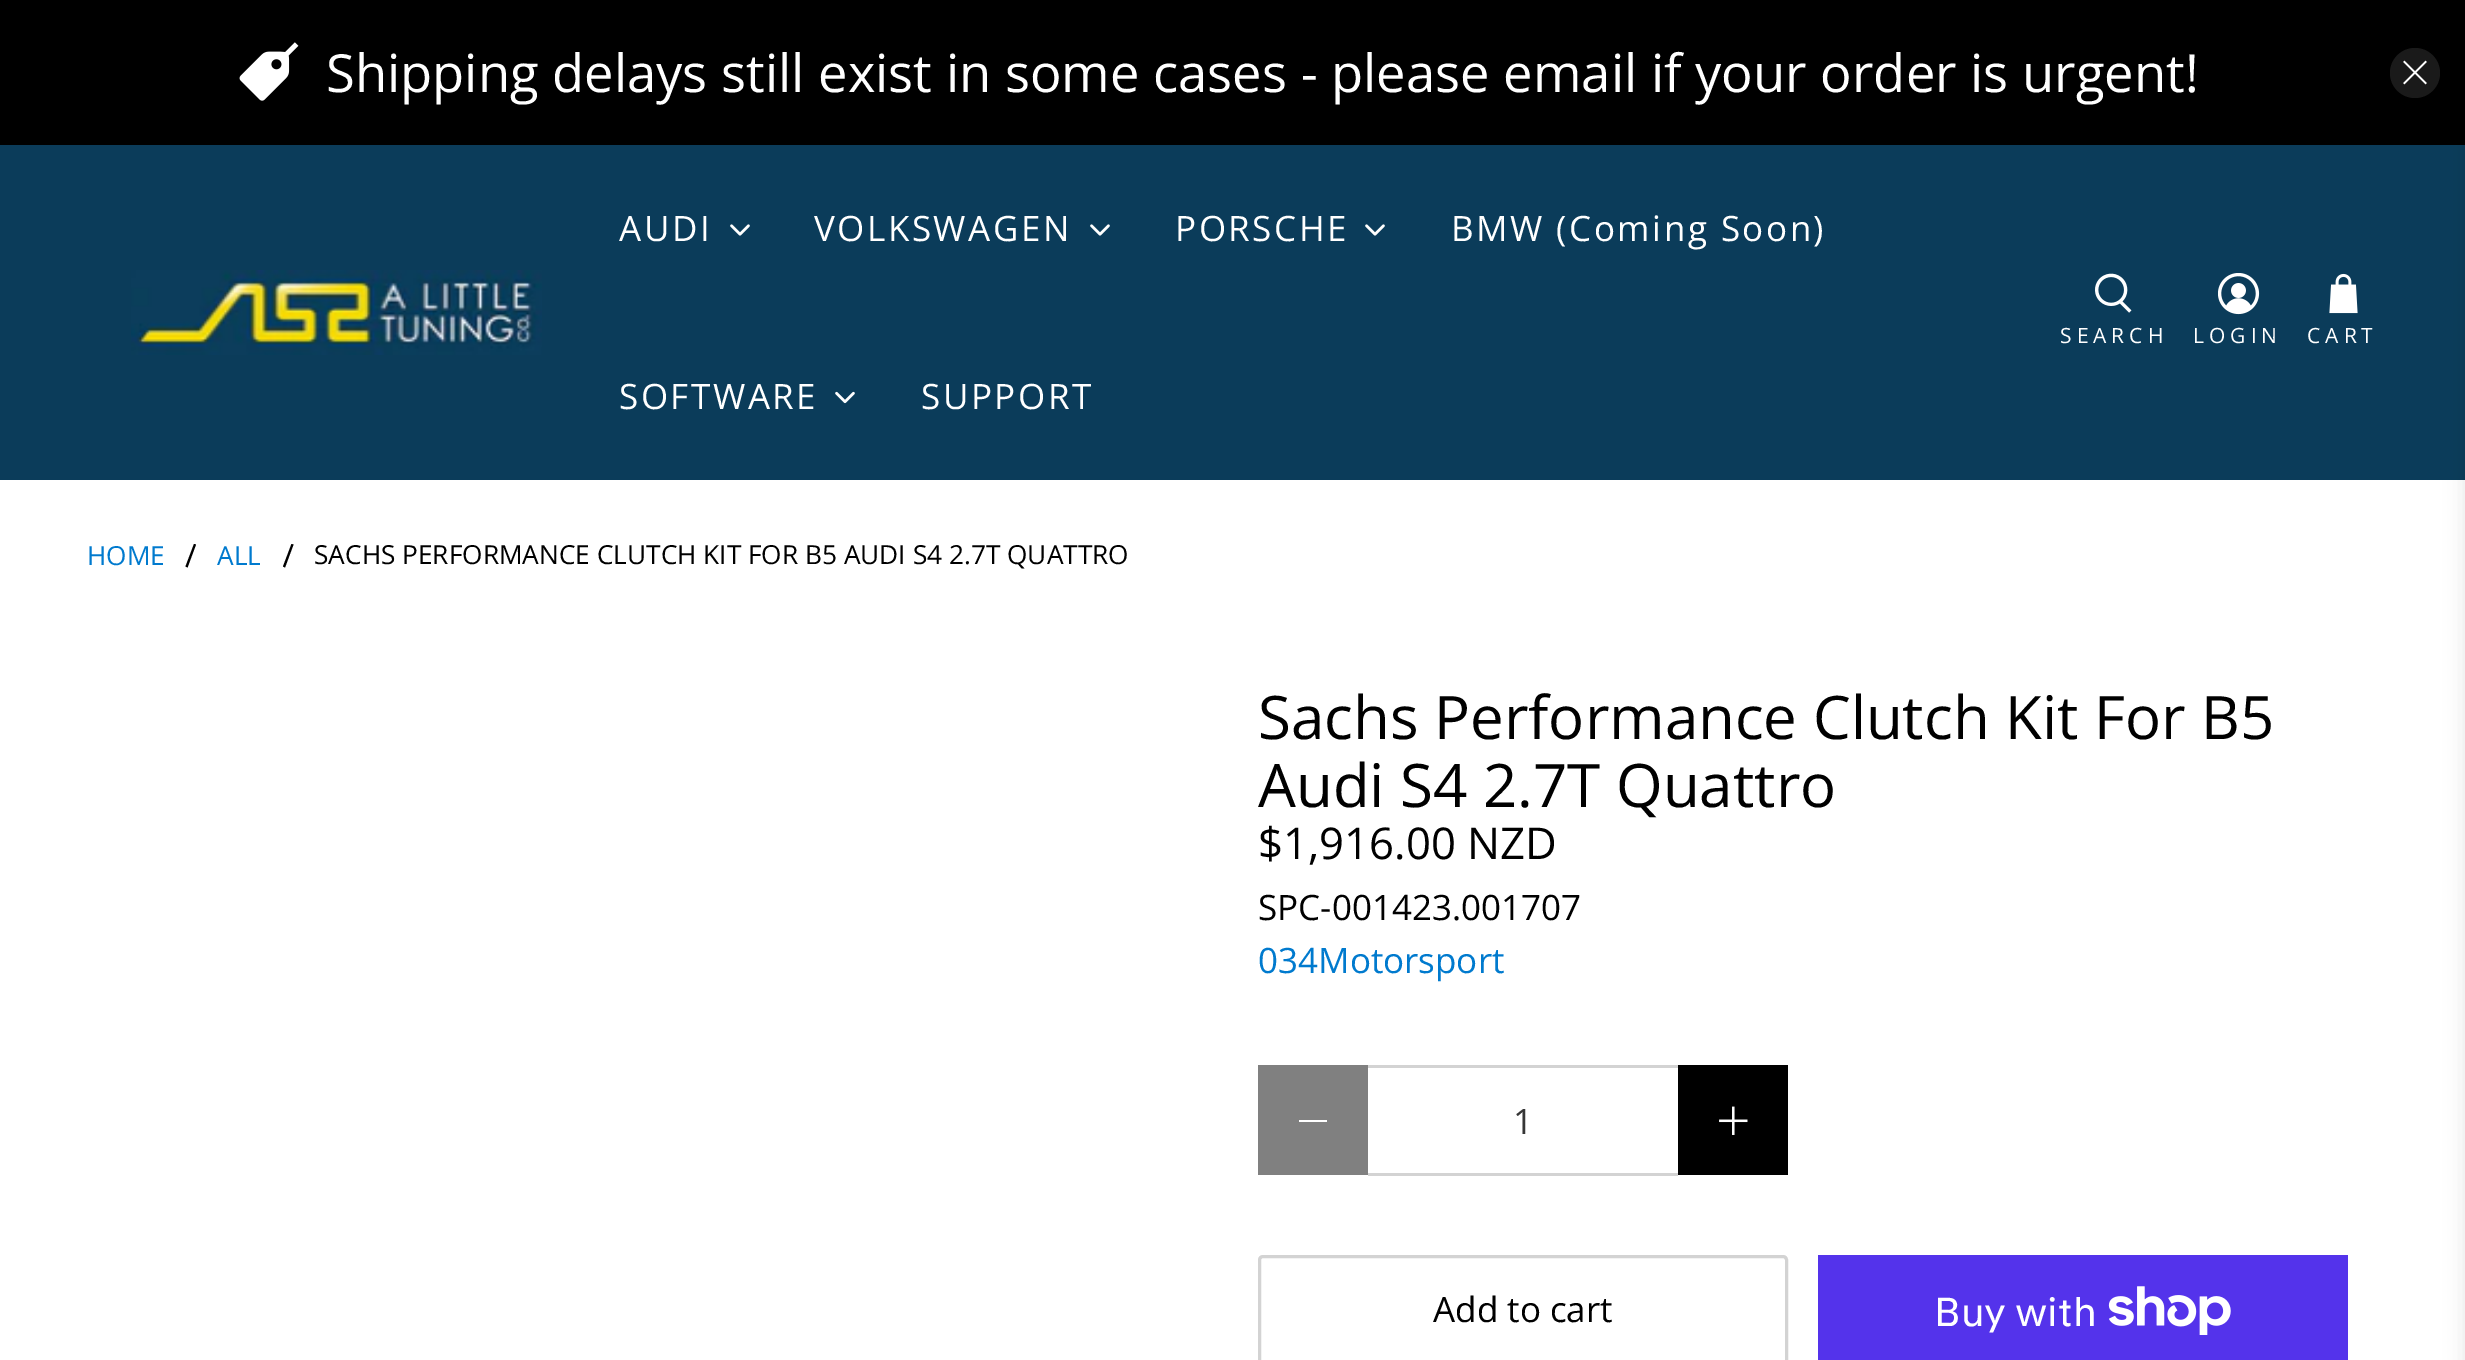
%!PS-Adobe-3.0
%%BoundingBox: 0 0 2465 1360
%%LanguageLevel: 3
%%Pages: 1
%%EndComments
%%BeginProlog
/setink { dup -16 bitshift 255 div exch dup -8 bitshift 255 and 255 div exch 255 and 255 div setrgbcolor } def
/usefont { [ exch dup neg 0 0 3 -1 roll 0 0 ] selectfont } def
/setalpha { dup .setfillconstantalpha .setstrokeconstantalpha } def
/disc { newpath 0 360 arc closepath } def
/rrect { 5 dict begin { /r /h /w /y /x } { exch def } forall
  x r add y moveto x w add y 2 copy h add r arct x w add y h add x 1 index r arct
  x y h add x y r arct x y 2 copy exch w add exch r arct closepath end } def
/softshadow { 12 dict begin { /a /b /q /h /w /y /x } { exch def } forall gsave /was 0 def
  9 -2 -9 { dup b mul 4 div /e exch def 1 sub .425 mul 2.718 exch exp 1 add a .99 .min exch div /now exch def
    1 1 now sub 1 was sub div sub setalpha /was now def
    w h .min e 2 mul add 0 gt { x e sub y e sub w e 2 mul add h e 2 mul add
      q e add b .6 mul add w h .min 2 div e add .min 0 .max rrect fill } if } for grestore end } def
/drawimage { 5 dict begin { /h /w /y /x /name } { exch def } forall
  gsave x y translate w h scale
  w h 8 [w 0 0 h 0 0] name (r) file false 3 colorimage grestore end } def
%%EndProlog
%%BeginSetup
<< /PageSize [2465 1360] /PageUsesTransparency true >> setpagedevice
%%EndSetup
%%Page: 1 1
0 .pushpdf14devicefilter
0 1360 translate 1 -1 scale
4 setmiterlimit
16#FFFFFF setink
0 0 2465 1360 rectfill
16#000000 setink
0 0 2465 145 rectfill
(img1.raw) 239 42 60 59 drawimage
/OpenSans-Regular 52.5 usefont
16#FFFFFF setink
326 92 moveto (Shipping delays still exist in some cases - please email if your order is urgent!) show
16#1A1A1A setink
2415 73 25 disc fill
(img2.raw) 2403 60 24 25 drawimage
16#0B3C5A setink
0 145 2465 335 rectfill
16#0A0A0A setink
2465 20 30 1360 0 10 0.1 softshadow
(img3.raw) 131 270 411 85 drawimage
/OpenSans-Regular 35 usefont
16#FFFFFF setink
619 241 moveto 2.5 0 (AUDI) ashow
(img4.raw) 730 224 20 12 drawimage
814 241 moveto 2.5 0 (VOLKSWAGEN) ashow
(img4.raw) 1090 224 20 12 drawimage
1175 241 moveto 2.5 0 (PORSCHE) ashow
(img4.raw) 1365 224 20 12 drawimage
1451 241 moveto 2.5 0 (BMW \(Coming Soon\)) ashow
619 409 moveto 2.5 0 (SOFTWARE) ashow
(img5.raw) 835 391 20 13 drawimage
921 409 moveto 2.5 0 (SUPPORT) ashow
(img6.raw) 2095 273 37 40 drawimage
/OpenSans-Regular 21 usefont
2060 343 moveto 5 0 (SEARCH) ashow
(img7.raw) 2218 273 42 42 drawimage
2193 343 moveto 5 0 (LOGIN) ashow
(img8.raw) 2329 273 29 41 drawimage
2307 343 moveto 5 0 (CART) ashow
/OpenSans-Regular 26.25 usefont
16#007ACE setink
87 565 moveto (HOME) show
16#000000 setink
185.5 566.5 moveto 194 544 lineto 196 544.5 lineto 187.5 567.5 lineto closepath fill
16#007ACE setink
217 565 moveto (ALL) show
16#000000 setink
283 566.5 moveto 291.5 544 lineto 293.5 544.5 lineto 285 567.5 lineto closepath fill
314 564 moveto (SACHS PERFORMANCE CLUTCH KIT FOR B5 AUDI S4 2.7T QUATTRO) show
/OpenSans-Regular 60 usefont
1258 739 moveto (Sachs Performance Clutch Kit For B5) show
1258 807 moveto (Audi S4 2.7T Quattro) show
/OpenSans-Regular 43.75 usefont
1258 859 moveto ($1,916.00 NZD) show
/OpenSans-Regular 35 usefont
1258 920 moveto (SPC-001423.001707) show
16#007ACE setink
1258 973 moveto (034Motorsport) show
[
    [1258 1065 110 110 16#808080]
    [1299 1120 28 2 16#FFFFFF]
    [1368 1065 310 3 16#D3D3D3]
    [1368 1173 310 3 16#D3D3D3]
] { aload pop setink rectfill } forall
16#363636 setink
1513 1134 moveto (1) show
16#000000 setink
1678 1065 110 110 rectfill
(img9.raw) 1719 1106 29 29 drawimage
16#D3D3D3 setink
3 setlinewidth
1259.5 1256.5 527 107 3.5 rrect stroke
16#000000 setink
1433 1322 moveto (Add to cart) show
16#5433EB setink
1818 1255 530 105 rectfill
/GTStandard-Regular 40 usefont
16#FFFFFF setink
1934 1326 moveto (Buy with) show
(img10.raw) 2108 1286 123 49 drawimage
.poppdf14devicefilter showpage
%%EOF
